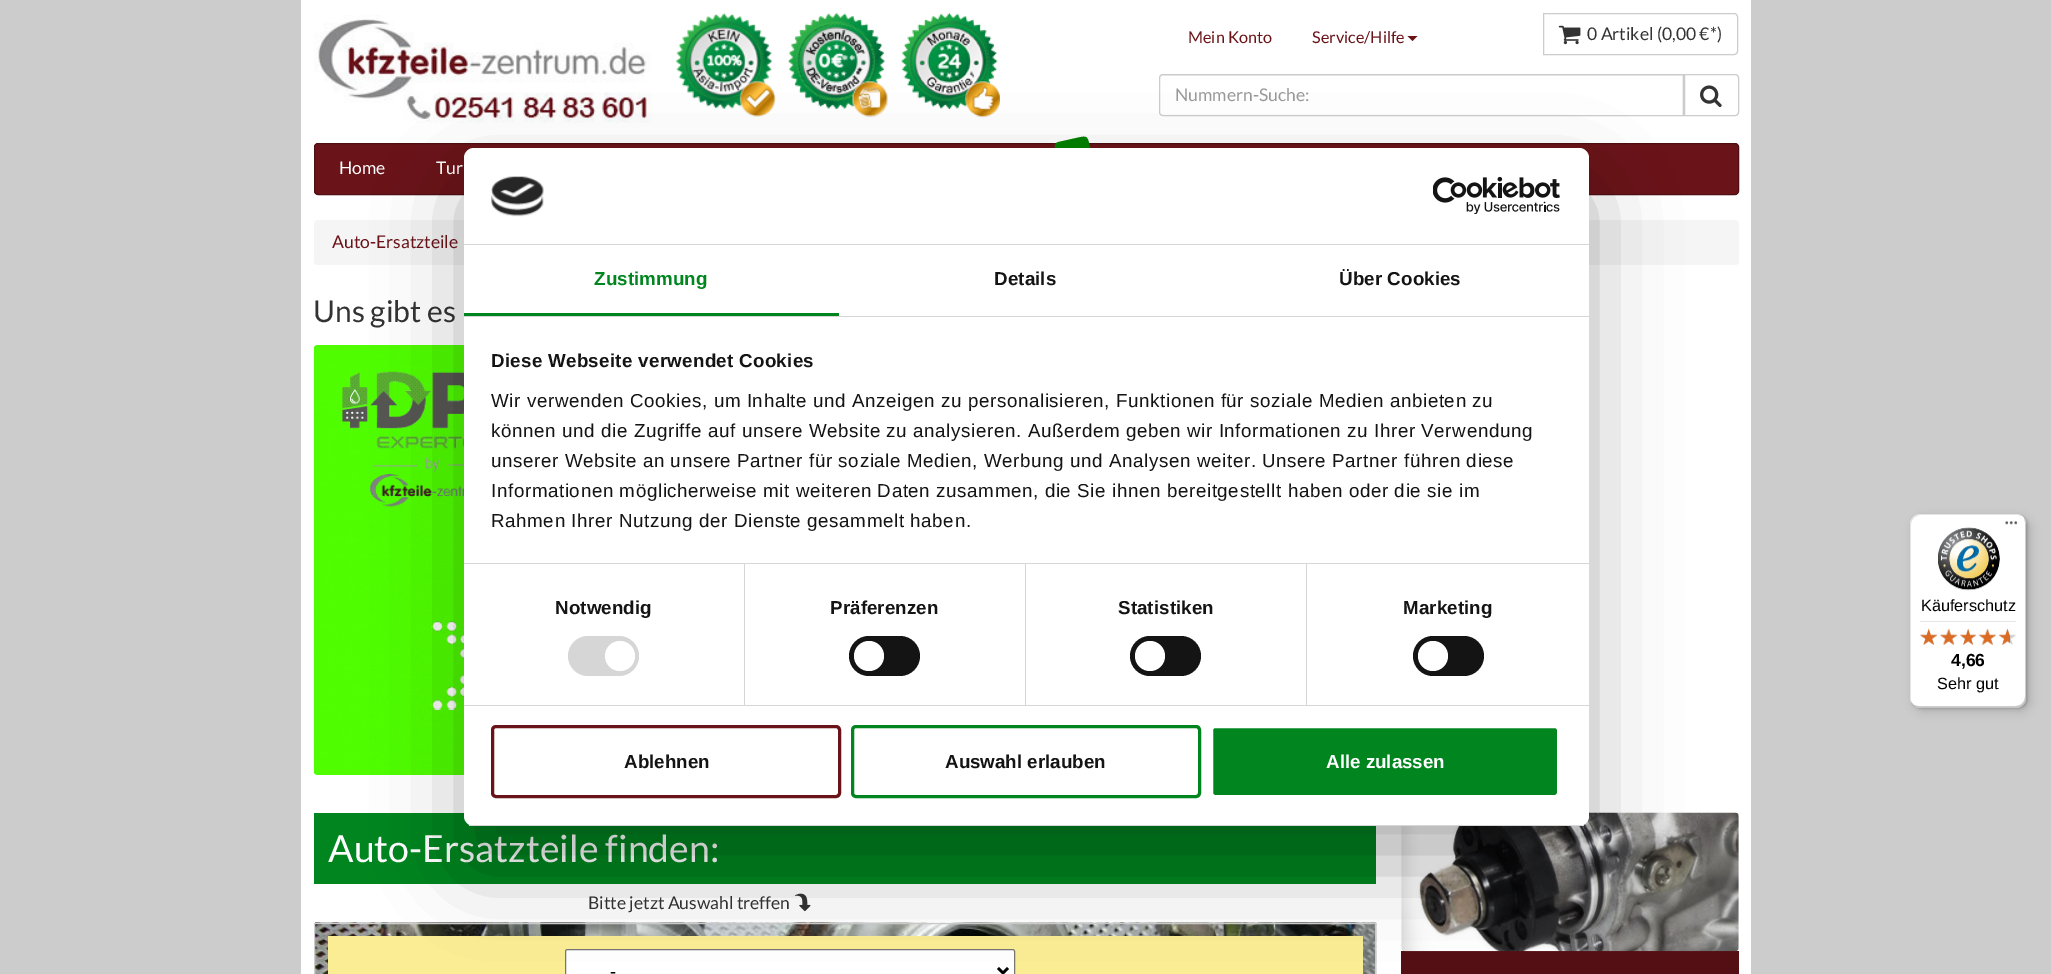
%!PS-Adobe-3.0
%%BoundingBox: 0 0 2051 974
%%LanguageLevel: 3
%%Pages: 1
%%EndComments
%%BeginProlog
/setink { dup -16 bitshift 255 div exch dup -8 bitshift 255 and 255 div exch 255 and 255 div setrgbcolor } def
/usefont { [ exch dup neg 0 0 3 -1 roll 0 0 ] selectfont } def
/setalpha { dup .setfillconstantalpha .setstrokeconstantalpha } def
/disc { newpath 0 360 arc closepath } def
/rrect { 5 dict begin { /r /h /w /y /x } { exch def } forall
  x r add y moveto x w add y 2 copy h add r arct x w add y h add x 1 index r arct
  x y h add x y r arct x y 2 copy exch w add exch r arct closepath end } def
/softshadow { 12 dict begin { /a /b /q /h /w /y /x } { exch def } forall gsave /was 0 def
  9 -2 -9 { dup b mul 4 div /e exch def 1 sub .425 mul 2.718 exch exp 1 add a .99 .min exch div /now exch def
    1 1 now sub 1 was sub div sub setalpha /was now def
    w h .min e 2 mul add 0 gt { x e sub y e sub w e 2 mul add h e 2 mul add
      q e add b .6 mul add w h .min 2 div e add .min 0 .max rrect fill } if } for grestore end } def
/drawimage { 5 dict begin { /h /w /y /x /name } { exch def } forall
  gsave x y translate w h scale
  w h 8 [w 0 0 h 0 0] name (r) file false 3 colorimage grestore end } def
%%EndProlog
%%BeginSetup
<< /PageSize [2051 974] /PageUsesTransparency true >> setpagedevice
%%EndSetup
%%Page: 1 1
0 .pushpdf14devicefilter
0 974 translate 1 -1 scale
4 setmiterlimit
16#CCCCCC setink
0 0 2051 974 rectfill
16#FFFFFF setink
301 0 1450 974 rectfill
(img1.raw) 314 15 337 108 drawimage
(img2.raw) 676 12 324 106 drawimage
/Lato-Regular 16.25 usefont
16#6A1319 setink
1188 43 moveto (Mein Konto) show
1312 43 moveto (Service/Hilfe) show
1407.5 36 moveto 1417.5 36 lineto 1412.5 41 lineto closepath fill
16#CCCCCC setink
1543.5 13.5 moveto 1734 13.5 lineto 1736 13.5 1737.5 15 1737.5 17 curveto 1737.5 51 lineto 1737.5 53 1736 54.5 1734 54.5 curveto 1543.5 54.5 lineto closepath stroke
(img3.raw) 1558 25 23 20 drawimage
/Lato-Regular 17.5 usefont
16#333333 setink
1587 40 moveto (0 Artikel \(0,00 €*\)) show
16#ECECEC setink
1162 76 moveto 1682 76 lineto 1682 115 lineto 1683 115 lineto 1683 75 lineto 1162 75 lineto 1160 75 1160 77 1160 79 curveto 1160 77 1161 76 1162 76 curveto closepath fill
16#CCCCCC setink
1163 74.5 moveto 1683.5 74.5 lineto 1683.5 115.5 lineto 1163 115.5 lineto 1161 115.5 1159.5 114 1159.5 112 curveto 1159.5 78 lineto 1159.5 76 1161 74.5 1163 74.5 curveto closepath stroke
16#999999 setink
1175 101 moveto (Nummern-Suche:) show
16#CCCCCC setink
1684.5 74.5 moveto 1735 74.5 lineto 1737 74.5 1738.5 76 1738.5 78 curveto 1738.5 112 lineto 1738.5 114 1737 115.5 1735 115.5 curveto 1684.5 115.5 lineto closepath stroke
(img4.raw) 1700 85 22 22 drawimage
16#6A1319 setink
314.5 143.5 1424 51 3.5 rrect gsave fill grestore
16#4E0E12 setink
stroke
16#008000 setink
1058.5 142 moveto 1078.5 137.5 lineto 1087.5 135.5 1087.5 137 1089.5 145 curveto 1090.5 149 1092 154.5 1086.5 156 curveto 1061.5 161 lineto 1056 161 1056 153 1055 149.5 curveto 1054.5 146 1055 142.5 1058.5 142 curveto closepath fill
16#FFFFFF setink
339 174 moveto (Home) show
436 174 moveto (Tur) show
16#F5F5F5 setink
314 220 1425 45 4 rrect fill
16#6A1319 setink
332 248 moveto (Auto-Ersatzteile) show
/Lato-Regular 30 usefont
16#333333 setink
313 322 moveto (Uns gibt es) show
(img5.raw) 313 345 151 430 drawimage
16#00851F setink
314 813 1062 71 rectfill
/Lato-Regular 37.5 usefont
16#FFFFFF setink
328 862 moveto (Auto-Ersatzteile finden:) show
/Lato-Regular 17.5 usefont
16#333333 setink
588 909 moveto (Bitte jetzt Auswahl treffen) show
(img6.raw) 794 893 17 19 drawimage
(img7.raw) 315 922 1062 52 drawimage
16#CCCCCC setink
314.5 923.5 1061 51 rectstroke
16#FAED94 setink
328 936 1035 38 rectfill
16#FFFFFF setink
565.5 949.5 449 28 2 rrect gsave fill grestore
16#767676 setink
stroke
16#000000 setink
2.5 setlinewidth
998 968 moveto 1003 973 lineto 1008 968 lineto stroke
610 978 moveto (-) show
16#540F14 setink
1401 951 338 23 rectfill
(img8.raw) 1401 812 338 140 drawimage
16#000000 setink
464 188 1125 678 10 42.5 0.3 softshadow
16#FFFFFF setink
464 148 1125 678 10 rrect fill
16#D6D6D6 setink
464 244 1125 1 rectfill
(img9.raw) 491 176 53 41 drawimage
(img10.raw) 1433 176 127 38 drawimage
464 316 1125 1 rectfill
16#00851F setink
464 313 375 3 rectfill
/LiberationSans-Bold 18.75 usefont
594 285 moveto 0.1 0 (Zustimmung) ashow
16#141414 setink
994 285 moveto 0.1 0 (Details) ashow
1339 285 moveto 0.1 0 (Über Cookies) ashow
16#D6D6D6 setink
464 563 1125 1 rectfill
16#141414 setink
491 367 moveto 0.3 0 (Diese Webseite verwendet Cookies) ashow
/LiberationSans-Regular 18.75 usefont
491 407 moveto 0.62 0 (Wir verwenden Cookies, um Inhalte und Anzeigen zu personalisieren, Funktionen für soziale Medien anbieten zu) ashow
491 437 moveto 0.62 0 (können und die Zugriffe auf unsere Website zu analysieren. Außerdem geben wir Informationen zu Ihrer Verwendung) ashow
491 467 moveto 0.62 0 (unserer Website an unsere Partner für soziale Medien, Werbung und Analysen weiter. Unsere Partner führen diese) ashow
491 497 moveto 0.62 0 (Informationen möglicherweise mit weiteren Daten zusammen, die Sie ihnen bereitgestellt haben oder die sie im) ashow
491 527 moveto 0.62 0 (Rahmen Ihrer Nutzung der Dienste gesammelt haben.) ashow
16#D6D6D6 setink
464 705 1125 1 rectfill
744 564 1 141 rectfill
/LiberationSans-Bold 18.75 usefont
16#141414 setink
555 614 moveto 0.1 0 (Notwendig) ashow
16#D6D6D6 setink
568 636 71 40 20 rrect fill
16#FFFFFF setink
620 656 15 disc fill
16#D6D6D6 setink
1025 564 1 141 rectfill
16#141414 setink
830 614 moveto 0.1 0 (Präferenzen) ashow
849 636 71 40 20 rrect fill
16#FFFFFF setink
869 656 15 disc fill
16#D6D6D6 setink
1306 564 1 141 rectfill
16#141414 setink
1118 614 moveto 0.1 0 (Statistiken) ashow
1130 636 71 40 20 rrect fill
16#FFFFFF setink
1150 656 15 disc fill
16#141414 setink
1403 614 moveto 0.1 0 (Marketing) ashow
1413 636 71 40 20 rrect fill
16#FFFFFF setink
1433 656 15 disc fill
gsave
464 148 1125 678 10 rrect clip newpath
16#D6D6D6 setink
464 825 1125 1 rectfill
grestore
16#6A1319 setink
3 setlinewidth
492.5 726.5 347 70 3.5 rrect stroke
16#141414 setink
624 768 moveto (Ablehnen) show
16#00851F setink
852.5 726.5 347 70 3.5 rrect stroke
16#141414 setink
945 768 moveto (Auswahl erlauben) show
16#00851F setink
1211.5 726.5 347 70 3.5 rrect gsave fill grestore
16#FFFFFF setink
stroke
1326 768 moveto (Alle zulassen) show
16#000000 setink
1914 518 116 193 10 5 0.15 softshadow
1911 515 117 194 10 1 0.15 softshadow
16#FFFFFF setink
1910 514 116 194 10 rrect fill
0.1 setalpha
16#000000 setink
1921 515 moveto 2018 515 lineto 2022 516 lineto 2020 515 2018 514 2016 514 curveto 1920 514 lineto 1914 514 1910 518 1910 524 curveto 1910 698 lineto 1910 702 1912 705 1915 707 curveto 1913 705 1911 702 1911 699 curveto 1911 525 lineto 1911 519 1916 515 1921 515 curveto closepath fill
0.2 setalpha
1911 702 moveto 1913 706 1916 708 1920 708 curveto 2016 708 lineto 2022 708 2026 704 2026 698 curveto 2026 524 lineto 2026 522 2025 520 2024 518 curveto 2025 522 lineto 2025 696 lineto 2025 702 2021 706 2015 706 curveto 1919 706 lineto 1916 706 1913 705 1911 702 curveto closepath fill
1 setalpha
(img11.raw) 2005 521 13 4 drawimage
0.2 setalpha
16#323232 setink
1911 703 moveto 1913 706 1916 708 1920 708 curveto 2016 708 lineto 2022 708 2026 704 2026 698 curveto 2026 697 lineto 2026 702 2021 707 2016 707 curveto 1919 707 lineto 1916 707 1913 705 1911 703 curveto closepath fill
0.3 setalpha
16#FFFFFF setink
1911 703 moveto 1913 706 1916 708 1920 708 curveto 2016 708 lineto 2022 708 2026 704 2026 698 curveto 2026 697 lineto 2026 702 2021 707 2016 707 curveto 1919 707 lineto 1916 707 1913 705 1911 703 curveto closepath fill
1 setalpha
(img12.raw) 1938 527 62 64 drawimage
/LiberationSans-Regular 16.25 usefont
16#000000 setink
1921 611 moveto (Käuferschutz) show
16#E5E5E5 setink
1920 621 96 1 rectfill
(img18.raw) 1920 629 17 16 drawimage
(img13.raw) 1920 628 17 17 drawimage
(img19.raw) 1940 629 17 16 drawimage
(img14.raw) 1940 628 18 17 drawimage
(img20.raw) 1960 629 16 16 drawimage
(img15.raw) 1960 628 16 17 drawimage
(img21.raw) 1978 629 18 16 drawimage
(img16.raw) 1978 628 18 17 drawimage
(img22.raw) 1999 629 17 16 drawimage
(img17.raw) 1999 628 11 17 drawimage
/LiberationSans-Bold 17.5 usefont
16#000000 setink
1951 666 moveto (4,66) show
/LiberationSans-Regular 16.25 usefont
1937 689 moveto (Sehr gut) show
.poppdf14devicefilter showpage
%%EOF
